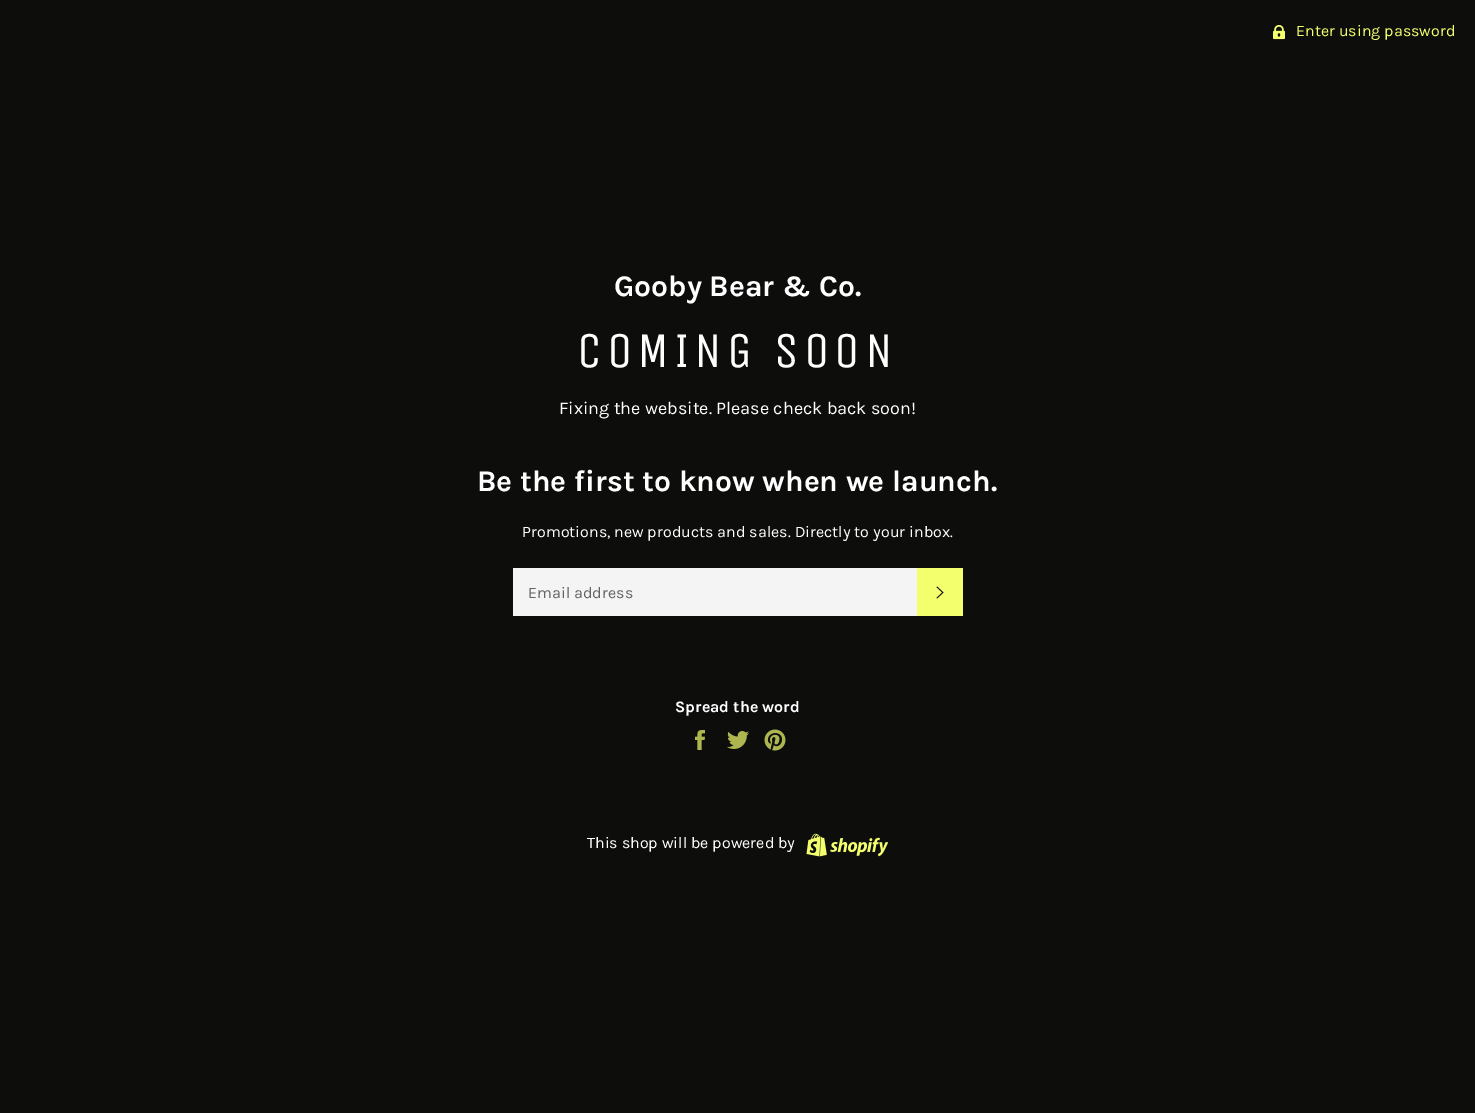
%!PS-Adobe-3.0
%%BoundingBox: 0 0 1475 1113
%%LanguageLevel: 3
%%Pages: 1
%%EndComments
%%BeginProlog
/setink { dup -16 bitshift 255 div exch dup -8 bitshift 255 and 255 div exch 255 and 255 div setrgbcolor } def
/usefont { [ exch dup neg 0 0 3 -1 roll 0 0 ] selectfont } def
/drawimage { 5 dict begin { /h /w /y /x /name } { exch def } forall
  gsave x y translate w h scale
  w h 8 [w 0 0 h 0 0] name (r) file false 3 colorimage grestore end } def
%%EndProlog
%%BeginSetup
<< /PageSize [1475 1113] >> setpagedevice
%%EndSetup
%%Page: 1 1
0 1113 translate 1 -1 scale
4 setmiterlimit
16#0D0D0C setink
0 0 1475 1113 rectfill
(img1.raw) 1273 25 12 15 drawimage
/Karla-Regular 16 usefont
16#F4FF6E setink
1296 36 moveto (Enter using password) show
/Karla-Bold 30 usefont
16#FFFFFF setink
614 296 moveto (Gooby Bear & Co.) show
/UnicaOne-Regular 50 usefont
577 367 moveto 5 0 (COMING SOON) ashow
/Karla-Regular 18 usefont
559 414 moveto (Fixing the website. Please check back soon!) show
/Karla-Bold 30 usefont
477 491 moveto (Be the first to know when we launch.) show
/Karla-Regular 16 usefont
522 537 moveto (Promotions, new products and sales. Directly to your inbox.) show
16#F4F4F4 setink
513 568 404 48 rectfill
16#636363 setink
528 598 moveto (Email address) show
16#F4FF6E setink
917 568 46 48 rectfill
(img2.raw) 936 586 8 13 drawimage
/Karla-Bold 16 usefont
16#FFFFFF setink
675 712 moveto (Spread the word) show
(img3.raw) 695 730 10 20 drawimage
(img4.raw) 727 731 22 18 drawimage
(img5.raw) 764 729 22 22 drawimage
/Karla-Regular 16 usefont
587 848 moveto (This shop will be powered by) show
(img6.raw) 806 833 82 24 drawimage
showpage
%%EOF
